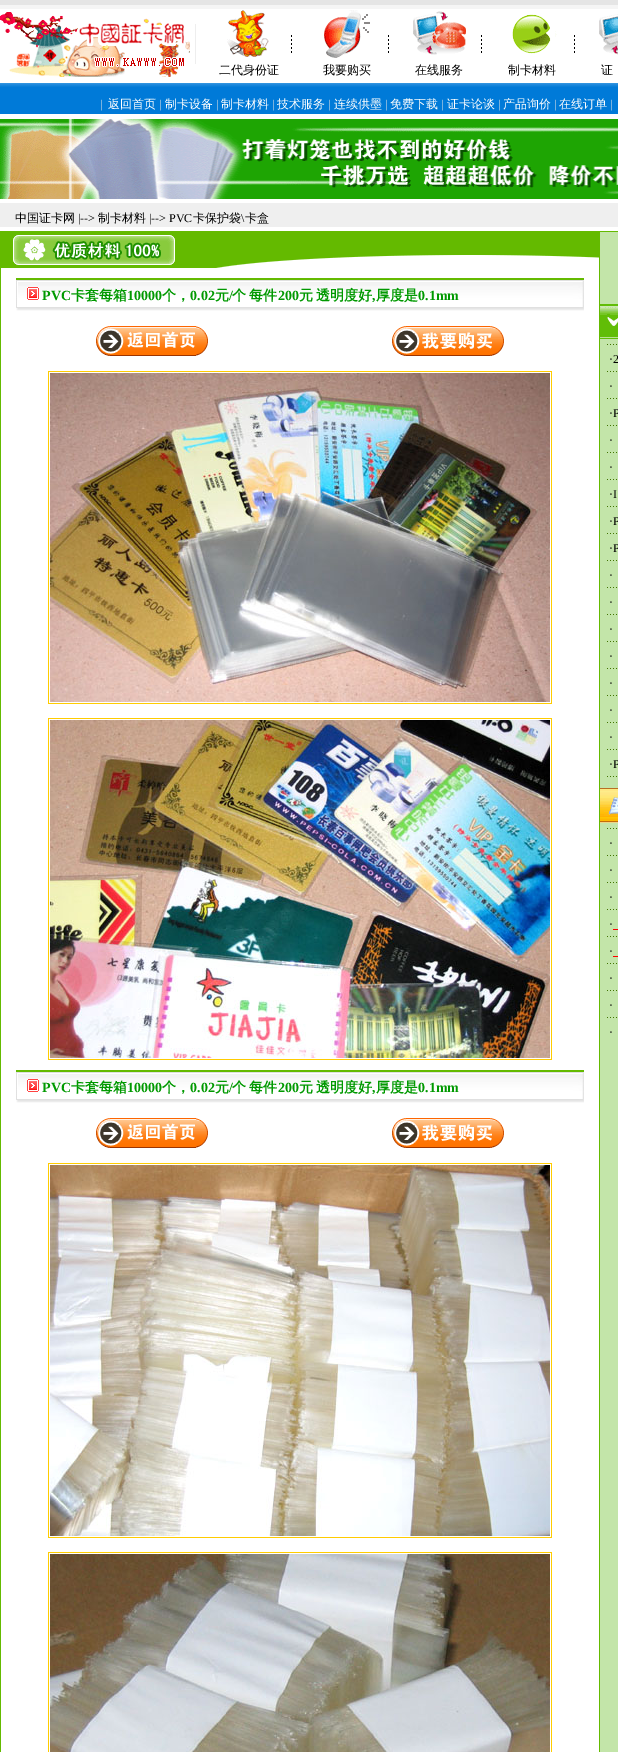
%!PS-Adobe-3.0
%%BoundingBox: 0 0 618 1752
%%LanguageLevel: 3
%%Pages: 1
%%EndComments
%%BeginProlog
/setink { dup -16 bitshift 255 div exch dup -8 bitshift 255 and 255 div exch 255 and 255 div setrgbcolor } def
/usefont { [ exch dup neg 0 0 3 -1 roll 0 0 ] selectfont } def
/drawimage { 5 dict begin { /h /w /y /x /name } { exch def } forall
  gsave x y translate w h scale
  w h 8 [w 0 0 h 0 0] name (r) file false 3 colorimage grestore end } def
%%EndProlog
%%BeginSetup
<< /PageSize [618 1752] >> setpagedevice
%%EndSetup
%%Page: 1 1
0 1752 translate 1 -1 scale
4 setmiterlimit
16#FFFFFF setink
0 0 618 1752 rectfill
16#E5E5E5 setink
0 0 618 5 rectfill
16#F5F5F5 setink
0 5 618 4 rectfill
(img1.raw) 0 12 190 65 drawimage
16#EEEEEE setink
195 24 1 40 rectfill
(img2.raw) 227 10 42 47 drawimage
(img3.raw) 291 35 1 18 drawimage
(img4.raw) 324 10 46 48 drawimage
(img3.raw) 388 35 1 18 drawimage
(img5.raw) 413 11 53 44 drawimage
(img3.raw) 481 35 1 18 drawimage
(img6.raw) 512 14 45 40 drawimage
(img3.raw) 574 35 1 18 drawimage
(img7.raw) 599 14 19 41 drawimage
/WenQuanYiZenHei-Medium 12 usefont
16#000000 setink
[
    [(二代身份证) 219 74]
    [(我要购买) 323 74]
    [(在线服务) 415 74]
    [(制卡材料) 508 74]
    [(证) 601 74]
] { aload pop moveto show } forall
(img8.raw) 0 83 618 6 drawimage
16#007AD8 setink
0 89 618 25 rectfill
/LiberationSerif-Regular 12 usefont
16#E4E4E4 setink
100 108 moveto (|) show
/WenQuanYiZenHei-Medium 12 usefont
16#FFFFFF setink
108 108 moveto (返回首页) show
/LiberationSerif-Regular 12 usefont
16#E4E4E4 setink
159 108 moveto (|) show
/WenQuanYiZenHei-Medium 12 usefont
16#FFFFFF setink
165 108 moveto (制卡设备) show
/LiberationSerif-Regular 12 usefont
16#E4E4E4 setink
216 108 moveto (|) show
/WenQuanYiZenHei-Medium 12 usefont
16#FFFFFF setink
221 108 moveto (制卡材料) show
/LiberationSerif-Regular 12 usefont
16#E4E4E4 setink
272 108 moveto (|) show
/WenQuanYiZenHei-Medium 12 usefont
16#FFFFFF setink
277 108 moveto (技术服务) show
/LiberationSerif-Regular 12 usefont
16#E4E4E4 setink
328 108 moveto (|) show
/WenQuanYiZenHei-Medium 12 usefont
16#FFFFFF setink
334 108 moveto (连续供墨) show
/LiberationSerif-Regular 12 usefont
16#E4E4E4 setink
385 108 moveto (|) show
/WenQuanYiZenHei-Medium 12 usefont
16#FFFFFF setink
390 108 moveto (免费下载) show
/LiberationSerif-Regular 12 usefont
16#E4E4E4 setink
441 108 moveto (|) show
/WenQuanYiZenHei-Medium 12 usefont
16#FFFFFF setink
447 108 moveto (证卡论谈) show
/LiberationSerif-Regular 12 usefont
16#E4E4E4 setink
498 108 moveto (|) show
/WenQuanYiZenHei-Medium 12 usefont
16#FFFFFF setink
503 108 moveto (产品询价) show
/LiberationSerif-Regular 12 usefont
16#E4E4E4 setink
554 108 moveto (|) show
/WenQuanYiZenHei-Medium 12 usefont
16#FFFFFF setink
559 108 moveto (在线订单) show
/LiberationSerif-Regular 12 usefont
16#E4E4E4 setink
610 108 moveto (|) show
(img9.raw) 0 119 618 80 drawimage
16#EFEFEF setink
0 203 618 24 rectfill
/WenQuanYiZenHei-Medium 12 usefont
16#000000 setink
15 222 moveto (中国证卡网) show
/LiberationSerif-Regular 12 usefont
78 222 moveto (|-->) show
/WenQuanYiZenHei-Medium 12 usefont
98 222 moveto (制卡材料) show
/LiberationSerif-Regular 12 usefont
149 222 moveto (|--> PVC) show
/WenQuanYiZenHei-Medium 12 usefont
193 222 moveto (卡保护袋 卡盒) show
/LiberationSerif-Regular 12 usefont
241 222 moveto (\\) show
16#64BA00 setink
0 231 618 1521 rectfill
16#FFFFFF setink
1 268 598 1484 rectfill
(img10.raw) 13 235 162 30 drawimage
(img11.raw) 216 255 383 13 drawimage
16#64BA00 setink
16 278 568 2 rectfill
(img12.raw) 16 280 11 31 drawimage
(img13.raw) 27 280 546 31 drawimage
(img14.raw) 27 287 12 13 drawimage
/LiberationSerif-Bold 14 usefont
16#009900 setink
42 300 moveto (PVC) show
/WenQuanYiZenHei-Bold 14 usefont
71 300 moveto (卡套每箱) show
/LiberationSerif-Bold 14 usefont
127 300 moveto (10000) show
/WenQuanYiZenHei-Bold 14 usefont
162 300 moveto (个，) show
/LiberationSerif-Bold 14 usefont
190 300 moveto (0.02) show
/WenQuanYiZenHei-Bold 14 usefont
215 300 moveto (元) show
/LiberationSerif-Bold 14 usefont
229 300 moveto (/) show
/WenQuanYiZenHei-Bold 14 usefont
232 300 moveto -1 0 32 (个 每件) widthshow
/LiberationSerif-Bold 14 usefont
278 300 moveto (200) show
/WenQuanYiZenHei-Bold 14 usefont
299 300 moveto -1 0 32 (元 透明度好) widthshow
/LiberationSerif-Bold 14 usefont
372 300 moveto (,) show
/WenQuanYiZenHei-Bold 14 usefont
376 300 moveto (厚度是) show
/LiberationSerif-Bold 14 usefont
418 300 moveto (0.1mm) show
(img15.raw) 573 280 11 31 drawimage
(img16.raw) 96 326 112 30 drawimage
(img17.raw) 392 326 112 30 drawimage
16#FFCC00 setink
48 371 504 333 rectfill
16#FFFFFF setink
49 372 502 331 rectfill
(img18.raw) 50 373 500 329 drawimage
16#FFCC00 setink
48 718 504 342 rectfill
16#FFFFFF setink
49 719 502 340 rectfill
(img19.raw) 50 720 500 338 drawimage
16#64BA00 setink
16 1070 568 2 rectfill
(img12.raw) 16 1072 11 31 drawimage
(img13.raw) 27 1072 546 31 drawimage
(img14.raw) 27 1079 12 13 drawimage
16#009900 setink
42 1092 moveto (PVC) show
/WenQuanYiZenHei-Bold 14 usefont
71 1092 moveto (卡套每箱) show
/LiberationSerif-Bold 14 usefont
127 1092 moveto (10000) show
/WenQuanYiZenHei-Bold 14 usefont
162 1092 moveto (个，) show
/LiberationSerif-Bold 14 usefont
190 1092 moveto (0.02) show
/WenQuanYiZenHei-Bold 14 usefont
215 1092 moveto (元) show
/LiberationSerif-Bold 14 usefont
229 1092 moveto (/) show
/WenQuanYiZenHei-Bold 14 usefont
232 1092 moveto -1 0 32 (个 每件) widthshow
/LiberationSerif-Bold 14 usefont
278 1092 moveto (200) show
/WenQuanYiZenHei-Bold 14 usefont
299 1092 moveto -1 0 32 (元 透明度好) widthshow
/LiberationSerif-Bold 14 usefont
372 1092 moveto (,) show
/WenQuanYiZenHei-Bold 14 usefont
376 1092 moveto (厚度是) show
/LiberationSerif-Bold 14 usefont
418 1092 moveto (0.1mm) show
(img15.raw) 573 1072 11 31 drawimage
(img16.raw) 96 1118 112 30 drawimage
(img17.raw) 392 1118 112 30 drawimage
16#FFCC00 setink
48 1163 504 375 rectfill
16#FFFFFF setink
49 1164 502 373 rectfill
(img20.raw) 50 1165 500 371 drawimage
16#FFCC00 setink
48 1552 504 200 rectfill
16#FFFFFF setink
49 1553 502 199 rectfill
(img21.raw) 50 1554 500 198 drawimage
16#C3E5A9 setink
600 232 18 1520 rectfill
(img22.raw) 600 304 18 35 drawimage
(img23.raw) 607 344 10 1 drawimage
/LiberationSerif-Regular 12 usefont
16#000000 setink
609 363 moveto (·2) show
(img23.raw) 607 371 10 1 drawimage
609 390 moveto (·) show
(img23.raw) 607 398 10 1 drawimage
609 417 moveto (·P) show
(img23.raw) 607 425 10 1 drawimage
609 444 moveto (·) show
(img23.raw) 607 452 10 1 drawimage
609 471 moveto (·) show
(img23.raw) 607 479 10 1 drawimage
609 498 moveto (·I) show
(img23.raw) 607 506 10 1 drawimage
609 525 moveto (·P) show
(img23.raw) 607 533 10 1 drawimage
609 552 moveto (·P) show
(img23.raw) 607 560 10 1 drawimage
609 579 moveto (·) show
(img23.raw) 607 587 10 1 drawimage
609 606 moveto (·) show
(img23.raw) 607 614 10 1 drawimage
609 633 moveto (·) show
(img23.raw) 607 641 10 1 drawimage
609 660 moveto (·) show
(img23.raw) 607 668 10 1 drawimage
609 687 moveto (·) show
(img23.raw) 607 695 10 1 drawimage
609 714 moveto (·) show
(img23.raw) 607 722 10 1 drawimage
609 741 moveto (·) show
(img23.raw) 607 749 10 1 drawimage
609 768 moveto (·P) show
(img23.raw) 607 776 10 1 drawimage
(img24.raw) 600 788 18 35 drawimage
(img23.raw) 607 828 10 1 drawimage
609 847 moveto (·) show
(img23.raw) 607 855 10 1 drawimage
609 874 moveto (·) show
(img23.raw) 607 882 10 1 drawimage
609 901 moveto (·) show
(img23.raw) 607 909 10 1 drawimage
609 928 moveto (·) show
16#FF0000 setink
613 929 5 1 rectfill
(img23.raw) 607 936 10 1 drawimage
16#000000 setink
609 955 moveto (·) show
16#FF0000 setink
613 956 5 1 rectfill
(img23.raw) 607 963 10 1 drawimage
16#000000 setink
609 982 moveto (·) show
(img23.raw) 607 990 10 1 drawimage
609 1009 moveto (·) show
(img23.raw) 607 1017 10 1 drawimage
609 1036 moveto (·) show
showpage
%%EOF
